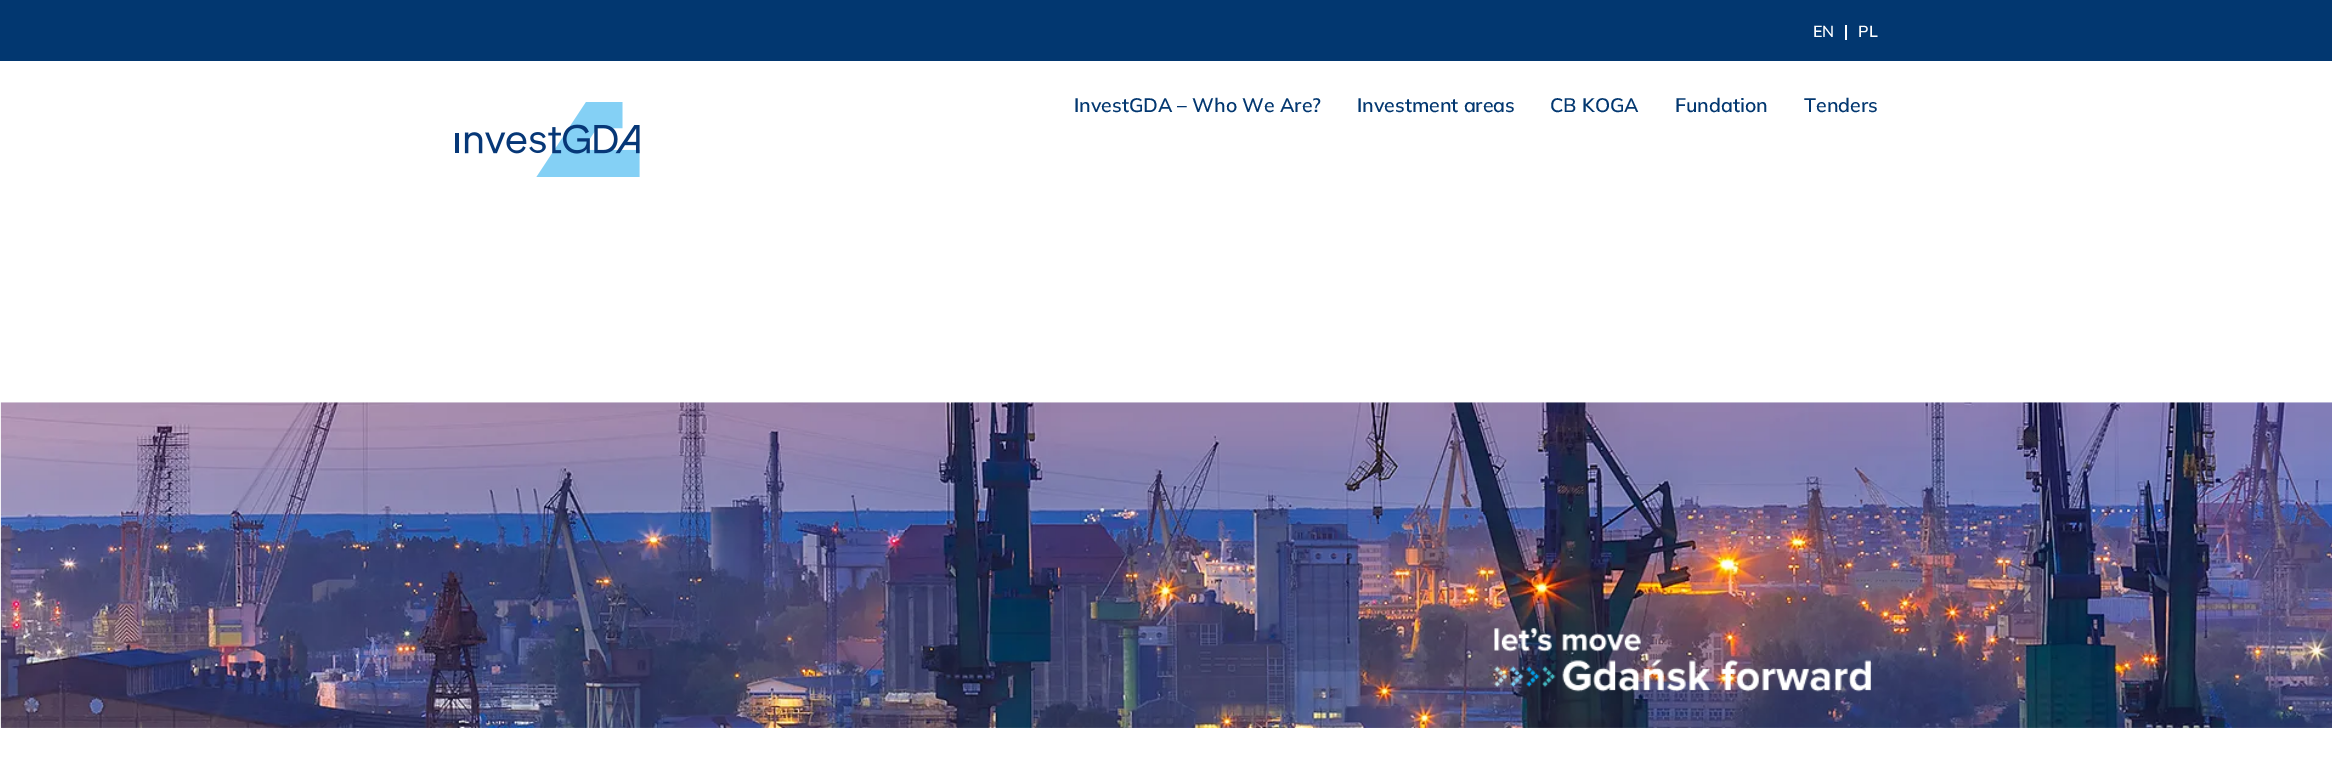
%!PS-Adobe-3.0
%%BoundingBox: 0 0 2332 776
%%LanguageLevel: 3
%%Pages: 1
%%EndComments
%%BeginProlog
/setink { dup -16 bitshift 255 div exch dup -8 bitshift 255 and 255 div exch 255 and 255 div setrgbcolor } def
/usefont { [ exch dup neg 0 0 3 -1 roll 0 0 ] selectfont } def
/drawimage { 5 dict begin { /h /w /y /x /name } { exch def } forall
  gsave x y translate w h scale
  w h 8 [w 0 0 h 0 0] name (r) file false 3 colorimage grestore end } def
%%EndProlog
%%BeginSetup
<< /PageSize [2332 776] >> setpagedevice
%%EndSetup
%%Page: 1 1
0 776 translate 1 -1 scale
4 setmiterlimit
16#FFFFFF setink
0 0 2332 776 rectfill
16#023770 setink
0 0 2332 61 rectfill
/Mulish-SemiBold 16 usefont
16#FFFFFF setink
1813 37 moveto (EN) show
1845 25 2 15 rectfill
1858 37 moveto (PL) show
(img1.raw) 455 102 185 75 drawimage
/Mulish-SemiBold 19.5 usefont
16#023770 setink
[
    [(InvestGDA – Who We Are?) 1074 112]
    [(Investment areas) 1357 112]
    [(CB KOGA) 1550 112]
    [(Fundation) 1675 112]
    [(Tenders) 1804 112]
] { aload pop moveto show } forall
(img2.raw) 0 402 2332 326 drawimage
(img3.raw) 1494 628 377 64 drawimage
showpage
%%EOF
